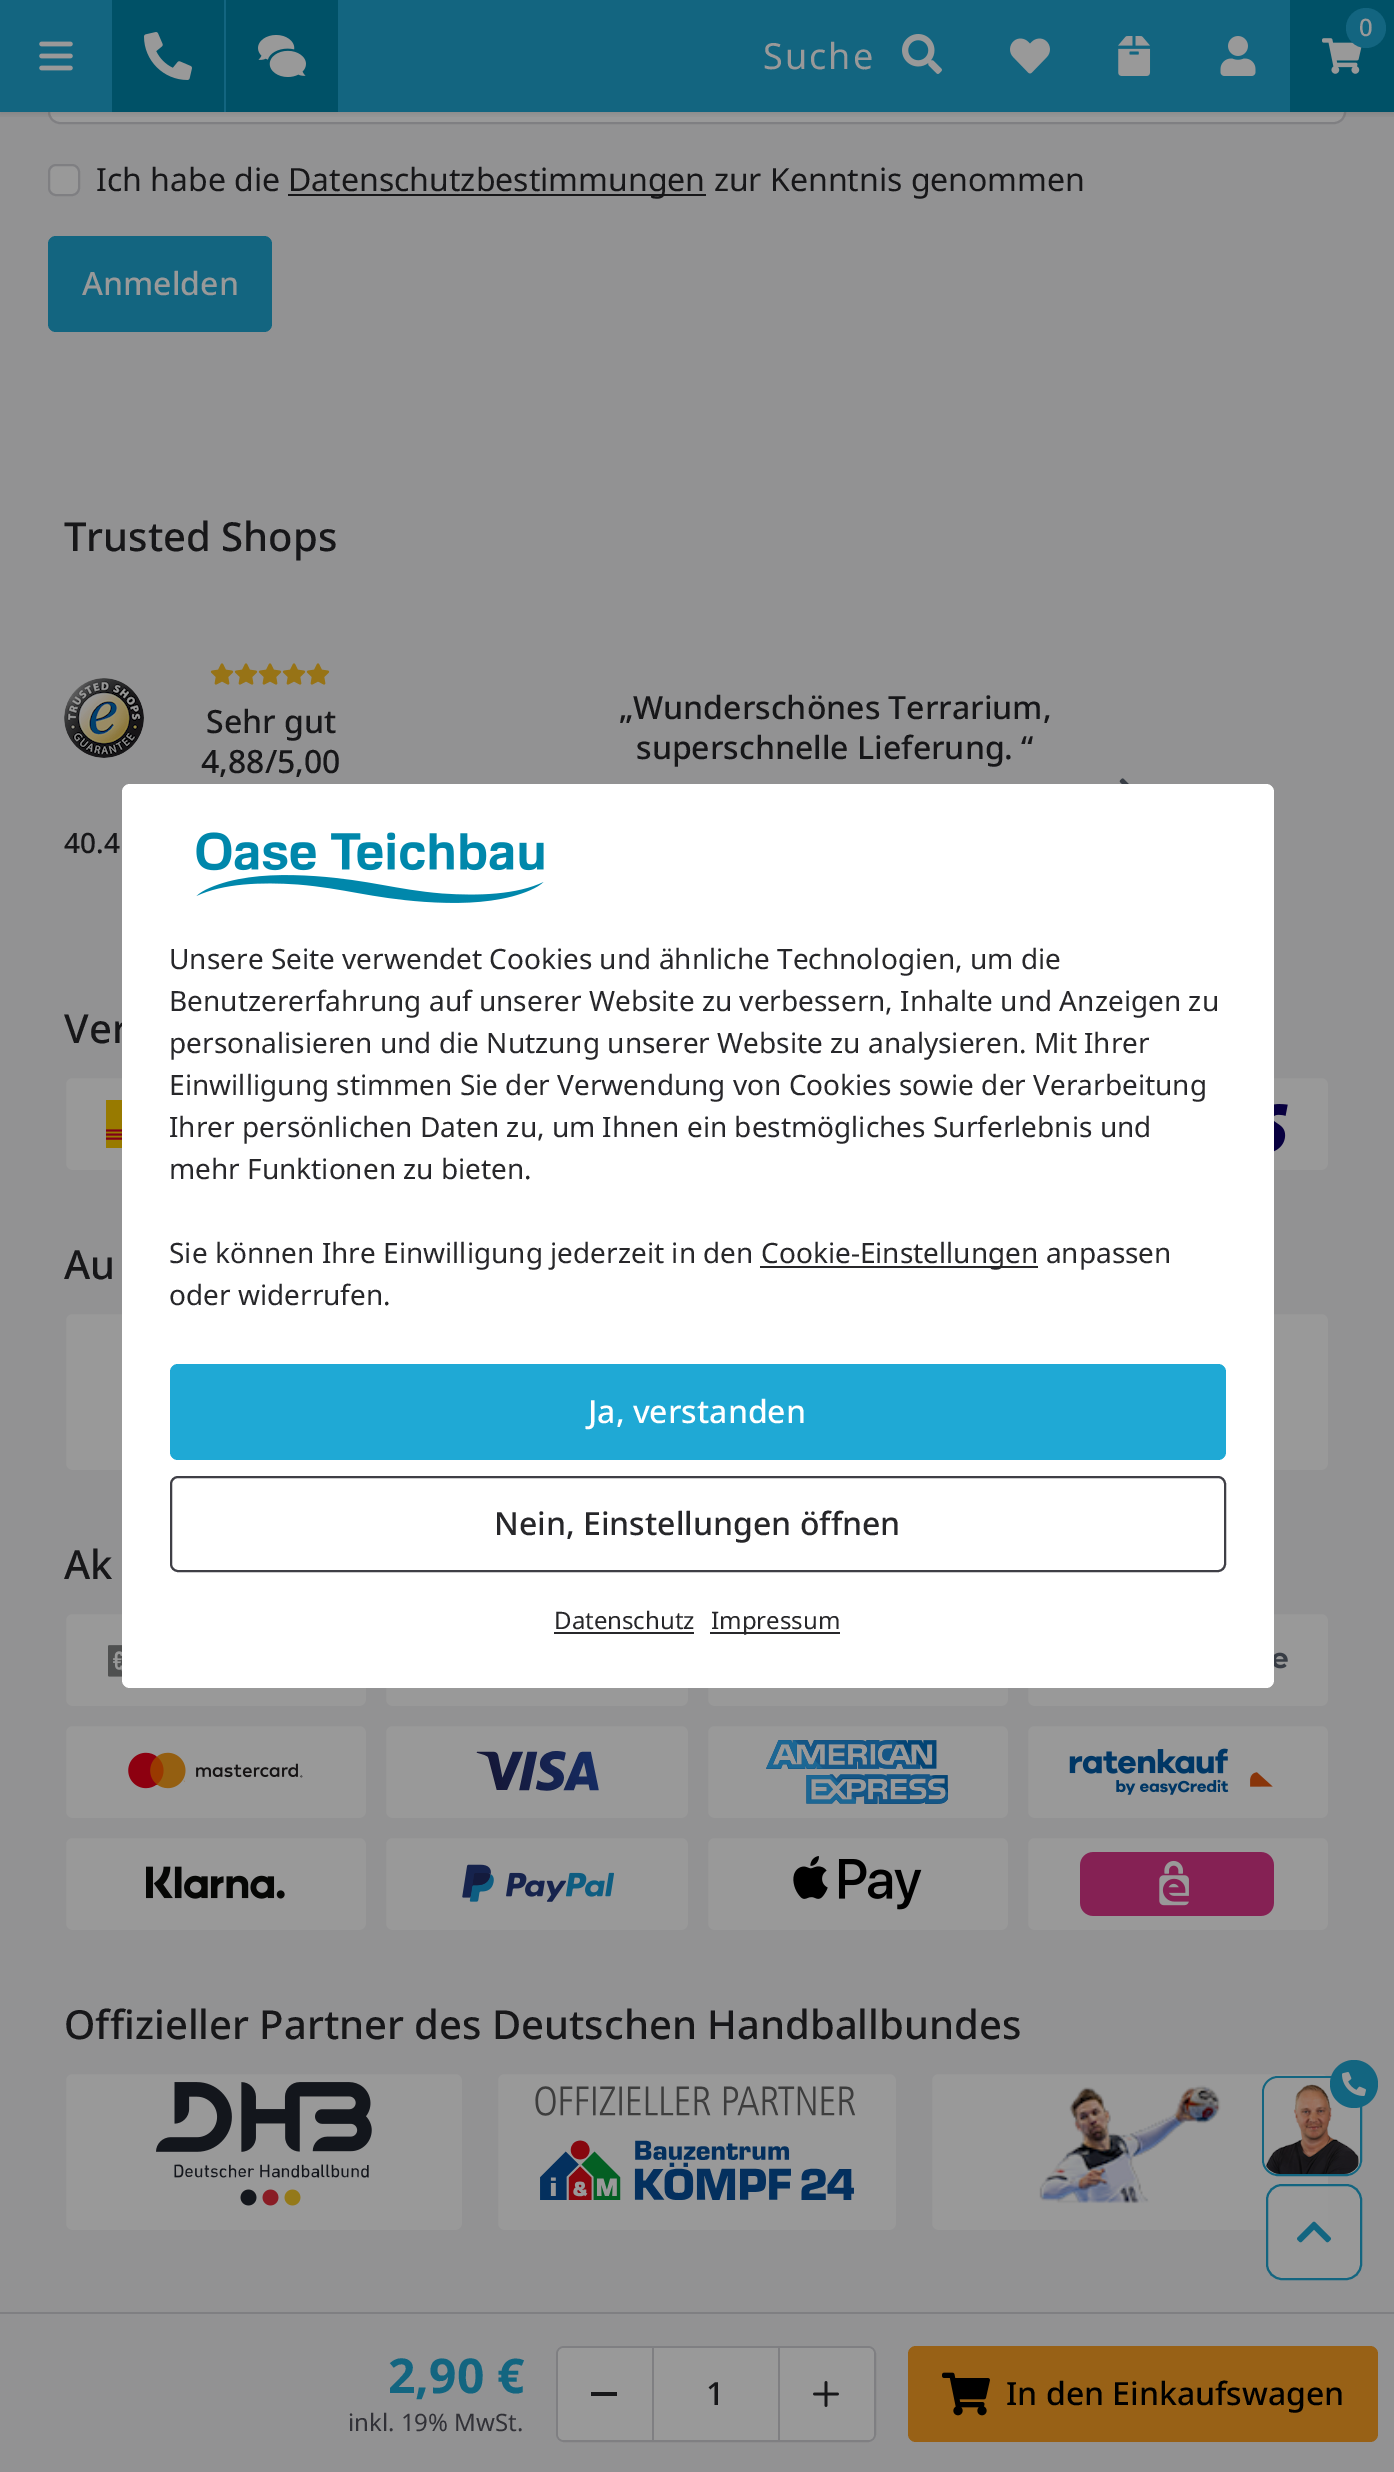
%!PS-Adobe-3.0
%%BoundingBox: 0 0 1394 2472
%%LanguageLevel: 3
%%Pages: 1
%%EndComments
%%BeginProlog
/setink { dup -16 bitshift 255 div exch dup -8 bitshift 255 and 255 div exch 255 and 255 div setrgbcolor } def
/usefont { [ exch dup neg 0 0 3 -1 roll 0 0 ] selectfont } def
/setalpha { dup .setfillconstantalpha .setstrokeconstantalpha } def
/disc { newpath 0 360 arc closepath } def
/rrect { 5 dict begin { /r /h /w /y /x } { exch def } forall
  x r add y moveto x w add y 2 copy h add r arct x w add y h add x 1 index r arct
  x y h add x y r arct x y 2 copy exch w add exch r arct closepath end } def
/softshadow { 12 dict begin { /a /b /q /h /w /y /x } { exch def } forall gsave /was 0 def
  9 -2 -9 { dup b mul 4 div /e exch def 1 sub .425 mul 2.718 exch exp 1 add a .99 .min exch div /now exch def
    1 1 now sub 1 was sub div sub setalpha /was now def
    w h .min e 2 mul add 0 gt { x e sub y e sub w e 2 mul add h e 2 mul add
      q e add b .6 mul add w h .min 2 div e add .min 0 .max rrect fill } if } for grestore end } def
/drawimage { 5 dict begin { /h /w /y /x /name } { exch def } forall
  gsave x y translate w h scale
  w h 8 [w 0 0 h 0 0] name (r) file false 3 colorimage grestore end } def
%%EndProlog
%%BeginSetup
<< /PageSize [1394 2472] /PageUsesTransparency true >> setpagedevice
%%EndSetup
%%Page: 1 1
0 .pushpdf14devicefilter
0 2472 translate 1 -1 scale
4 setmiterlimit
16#929293 setink
0 0 1394 2472 rectfill
16#999999 setink
49 41 1296 82 11 rrect gsave fill grestore
16#7F7F82 setink
2 setlinewidth
stroke
16#136580 setink
0 0 1290 112 rectfill
gsave
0 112 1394 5 rectclip
16#000000 setink
0 2 1394 112 0 3 0.1 softshadow
grestore
(img1.raw) 39 41 34 30 drawimage
16#005167 setink
112 0 112 112 rectfill
(img2.raw) 144 32 48 48 drawimage
226 0 112 112 rectfill
(img3.raw) 258 35 48 42 drawimage
1290 0 104 112 rectfill
(img4.raw) 1322 38 40 36 drawimage
16#136580 setink
1366 28 20 disc fill
/NotoSans-Medium 24 usefont
16#999999 setink
1359 36 moveto 2 0 (0) ashow
/NotoSans-Regular 36 usefont
763 69 moveto 2 0 (Suche) ashow
(img5.raw) 902 34 40 40 drawimage
(img6.raw) 1010 38 40 36 drawimage
(img7.raw) 1118 36 33 40 drawimage
(img8.raw) 1220 36 36 40 drawimage
49 165 30 30 7 rrect gsave fill grestore
16#7F7F82 setink
stroke
/NotoSans-Regular 32 usefont
16#171719 setink
96 191 moveto (Ich habe die) show
288 194 418 2 rectfill
288 191 moveto (Datenschutzbestimmungen zur Kenntnis genommen) show
16#136580 setink
48 236 224 96 8 rrect fill
/NotoSans-Medium 32 usefont
16#999999 setink
82 295 moveto (Anmelden) show
/NotoSans-Medium 40 usefont
16#171719 setink
64 551 moveto (Trusted Shops) show
(img9.raw) 64 678 80 80 drawimage
(img10.raw) 210 663 24 22 drawimage
(img10.raw) 234 663 24 22 drawimage
(img10.raw) 258 663 24 22 drawimage
(img10.raw) 282 663 24 22 drawimage
(img10.raw) 306 663 24 22 drawimage
/NotoSans-Medium 32 usefont
206 733 moveto (Sehr gut) show
201 773 moveto (4,88/5,00) show
/NotoSans-Medium 28 usefont
64 853 moveto (40.4) show
/NotoSans-Medium 32 usefont
619 719 moveto („Wunderschönes Terrarium,) show
636 759 moveto (superschnelle Lieferung. “) show
(img11.raw) 1119 778 10 6 drawimage
/NotoSans-Medium 40 usefont
64 1043 moveto (Ver) show
16#999999 setink
65 1077 302 94 7 rrect gsave fill grestore
16#929293 setink
stroke
(img12.raw) 106 1100 16 48 drawimage
16#999999 setink
1027 1077 302 94 7 rrect gsave fill grestore
16#929293 setink
stroke
(img13.raw) 1274 1104 14 48 drawimage
16#171719 setink
64 1279 moveto (Au) show
16#999999 setink
65 1313 398 158 7 rrect gsave fill grestore
16#929293 setink
stroke
16#999999 setink
931 1313 398 158 7 rrect gsave fill grestore
16#929293 setink
stroke
16#171719 setink
64 1579 moveto (Ak) show
16#999999 setink
65 1613 302 94 7 rrect gsave fill grestore
16#929293 setink
stroke
(img14.raw) 108 1645 14 32 drawimage
16#999999 setink
385 1613 304 94 7 rrect gsave fill grestore
16#929293 setink
stroke
16#999999 setink
707 1613 302 94 7 rrect gsave fill grestore
16#929293 setink
stroke
16#999999 setink
1027 1613 302 94 7 rrect gsave fill grestore
16#929293 setink
stroke
(img15.raw) 1274 1652 14 17 drawimage
16#999999 setink
65 1725 302 94 7 rrect gsave fill grestore
16#929293 setink
stroke
(img16.raw) 128 1752 175 37 drawimage
16#999999 setink
385 1725 304 94 7 rrect gsave fill grestore
16#929293 setink
stroke
(img17.raw) 476 1751 123 40 drawimage
16#999999 setink
707 1725 302 94 7 rrect gsave fill grestore
16#929293 setink
stroke
(img18.raw) 766 1740 182 64 drawimage
16#999999 setink
1027 1725 302 94 7 rrect gsave fill grestore
16#929293 setink
stroke
(img19.raw) 1069 1748 204 47 drawimage
16#999999 setink
65 1837 302 94 7 rrect gsave fill grestore
16#929293 setink
stroke
(img20.raw) 146 1866 139 33 drawimage
16#999999 setink
385 1837 304 94 7 rrect gsave fill grestore
16#929293 setink
stroke
(img21.raw) 462 1864 152 38 drawimage
16#999999 setink
707 1837 302 94 7 rrect gsave fill grestore
16#929293 setink
stroke
(img22.raw) 793 1856 129 54 drawimage
16#999999 setink
1027 1837 302 94 7 rrect gsave fill grestore
16#929293 setink
stroke
(img23.raw) 1080 1852 194 64 drawimage
16#171719 setink
64 2039 moveto (Offizieller Partner des Deutschen Handballbundes) show
16#999999 setink
65 2073 398 158 7 rrect gsave fill grestore
16#929293 setink
stroke
(img24.raw) 156 2082 216 124 drawimage
16#999999 setink
497 2073 400 158 7 rrect gsave fill grestore
16#929293 setink
stroke
(img25.raw) 535 2086 321 114 drawimage
16#999999 setink
931 2073 398 158 7 rrect gsave fill grestore
16#929293 setink
stroke
(img26.raw) 1039 2085 182 119 drawimage
16#FFFFFF setink
122 784 1152 904 8 rrect fill
(img27.raw) 196 832 348 71 drawimage
/NotoSans-Regular 28 usefont
16#27272A setink
[
    [(Unsere Seite verwendet Cookies und ähnliche Technologien, um die) 169 969]
    [(Benutzererfahrung auf unserer Website zu verbessern, Inhalte und Anzeigen zu) 169 1011]
    [(personalisieren und die Nutzung unserer Website zu analysieren. Mit Ihrer) 169 1053]
    [(Einwilligung stimmen Sie der Verwendung von Cookies sowie der Verarbeitung) 169 1095]
    [(Ihrer persönlichen Daten zu, um Ihnen ein bestmögliches Surferlebnis und) 169 1137]
    [(mehr Funktionen zu bieten.) 169 1179]
    [(Sie können Ihre Einwilligung jederzeit in den) 169 1263]
] { aload pop moveto show } forall
760 1266 278 2 rectfill
761 1263 moveto (Cookie-Einstellungen anpassen) show
169 1305 moveto (oder widerrufen.) show
16#1FA9D5 setink
170 1364 1056 96 8 rrect fill
/NotoSans-Medium 32 usefont
16#FFFFFF setink
588 1423 moveto (Ja, verstanden) show
16#3F3F46 setink
171 1477 1054 94 7 rrect stroke
16#27272A setink
494 1535 moveto (Nein, Einstellungen öffnen) show
/NotoSans-Regular 24 usefont
554 1629 moveto (Datenschutz) show
554 1632 140 2 rectfill
710 1632 130 2 rectfill
711 1629 moveto (Impressum) show
16#999999 setink
1263 2077 98 98 15 rrect gsave fill grestore
16#136580 setink
stroke
(img29.raw) 1264 2078 96 96 drawimage
1354 2084 24 disc fill
(img28.raw) 1342 2072 24 24 drawimage
0.8 setalpha
16#999999 setink
1267 2185 94 94 15 rrect fill
1 setalpha
16#136580 setink
1267 2185 94 94 15 rrect stroke
(img30.raw) 1297 2221 34 22 drawimage
16#7F7F82 setink
0 2312 1394 2 rectfill
/NotoSans-Bold 48 usefont
16#136580 setink
388 2393 moveto (2,90 €) show
/NotoSans-Regular 24 usefont
16#313137 setink
348 2431 moveto (inkl. 19% MwSt.) show
16#7F7F82 setink
557 2347 318 94 7 rrect stroke
16#999999 setink
564 2348 moveto 652 2348 lineto 652 2440 lineto 564 2440 lineto 560.5 2440 558 2437.5 558 2434 curveto 558 2354 lineto 558 2350.5 560.5 2348 564 2348 curveto closepath fill
[
    [652 2348 2 92 16#7F7F82]
    [591 2392 26 4 16#171719]
    [654 2348 124 92 16#999999]
] { aload pop setink rectfill } forall
/NotoSans-Medium 32 usefont
16#171719 setink
706 2405 moveto (1) show
16#999999 setink
780 2348 moveto 868 2348 lineto 871.5 2348 874 2350.5 874 2354 curveto 874 2434 lineto 874 2437.5 871.5 2440 868 2440 curveto 780 2440 lineto closepath fill
16#7F7F82 setink
778 2348 2 92 rectfill
(img31.raw) 813 2381 26 26 drawimage
16#986116 setink
908 2346 470 96 8 rrect fill
(img32.raw) 942 2372 48 44 drawimage
16#000000 setink
1006 2405 moveto (In den Einkaufswagen) show
.poppdf14devicefilter showpage
%%EOF
